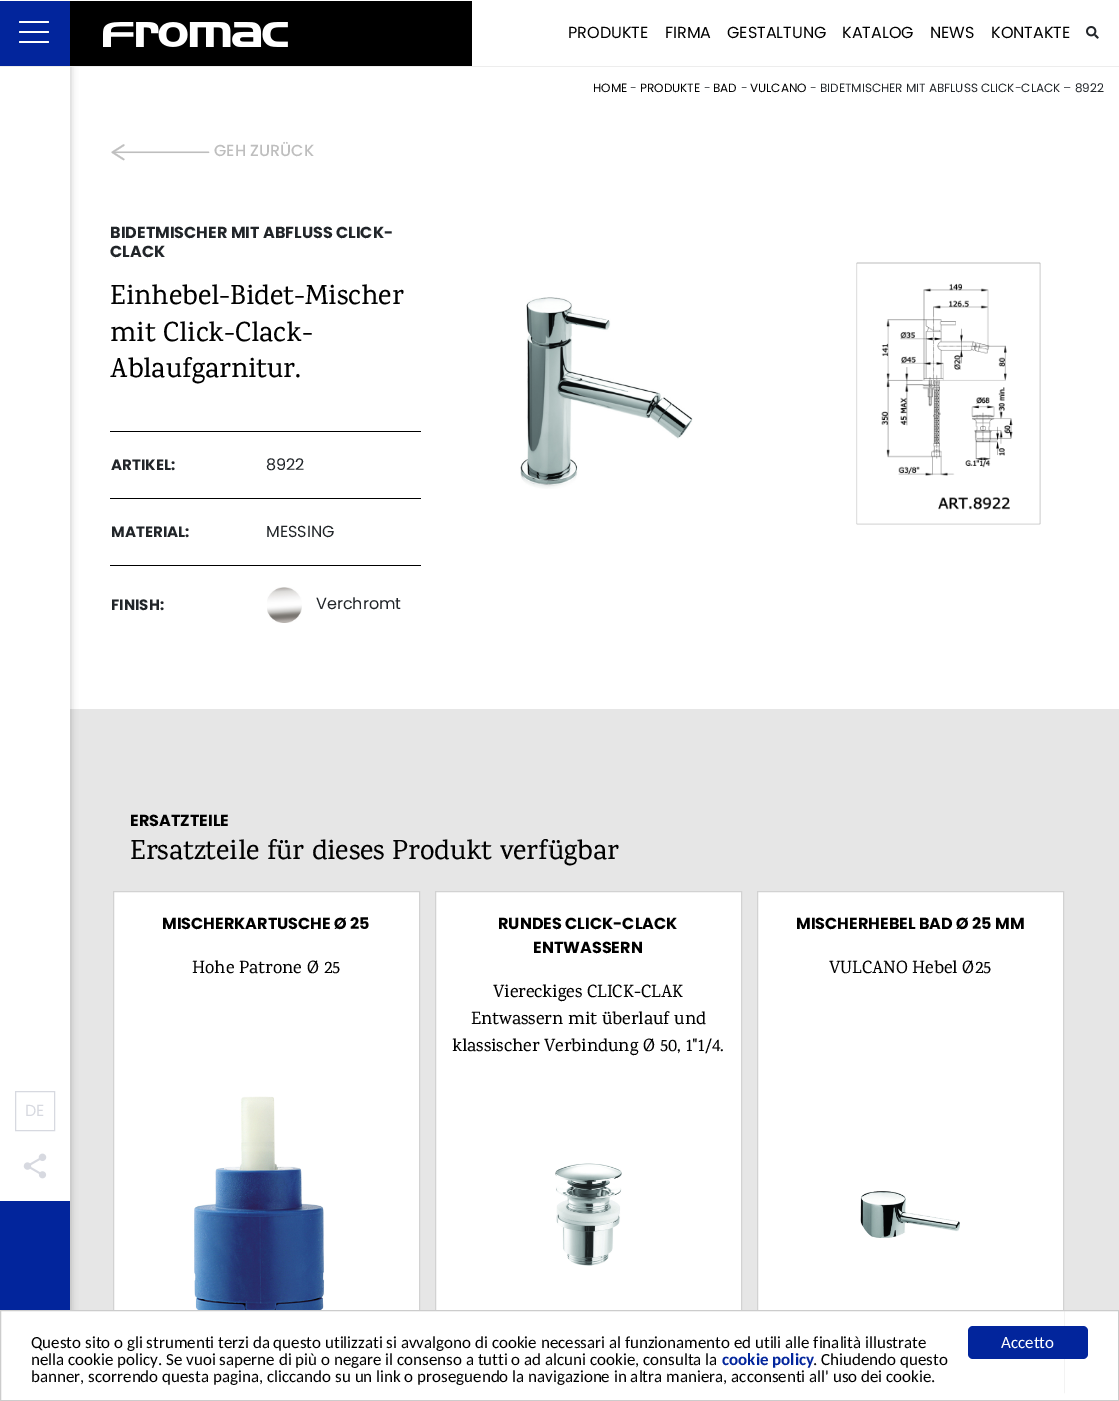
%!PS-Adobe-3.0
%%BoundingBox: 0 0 1119 1401
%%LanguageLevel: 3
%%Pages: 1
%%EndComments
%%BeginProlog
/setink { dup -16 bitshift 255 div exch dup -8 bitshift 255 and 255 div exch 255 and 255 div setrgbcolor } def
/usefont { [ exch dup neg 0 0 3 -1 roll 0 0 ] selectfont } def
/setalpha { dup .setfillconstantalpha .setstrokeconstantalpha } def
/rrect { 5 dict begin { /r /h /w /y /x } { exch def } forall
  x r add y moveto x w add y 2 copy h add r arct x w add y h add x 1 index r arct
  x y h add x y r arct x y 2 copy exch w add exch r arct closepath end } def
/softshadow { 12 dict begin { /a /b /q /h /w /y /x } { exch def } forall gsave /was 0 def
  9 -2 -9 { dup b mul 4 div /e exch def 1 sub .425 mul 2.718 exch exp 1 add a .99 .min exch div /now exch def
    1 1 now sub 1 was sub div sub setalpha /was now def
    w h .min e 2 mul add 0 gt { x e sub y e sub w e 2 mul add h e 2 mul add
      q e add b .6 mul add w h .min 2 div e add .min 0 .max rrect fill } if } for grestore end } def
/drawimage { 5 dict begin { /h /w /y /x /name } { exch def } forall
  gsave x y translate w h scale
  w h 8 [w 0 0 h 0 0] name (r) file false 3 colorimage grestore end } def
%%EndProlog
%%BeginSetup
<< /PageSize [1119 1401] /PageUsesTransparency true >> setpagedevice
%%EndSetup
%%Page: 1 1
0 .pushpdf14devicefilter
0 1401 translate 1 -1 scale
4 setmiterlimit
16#FFFFFF setink
0 0 1119 1401 rectfill
16#E6E6E6 setink
70 709 1049 601 rectfill
16#000000 setink
1 1 70 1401 0 3.5 0.2 softshadow
[
    [0 0 77 66 16#FFFFFF]
    [0 66 1119 1 16#EDEDED]
    [0 1 70 65 16#02259C]
] { aload pop setink rectfill } forall
16#FFFFFF setink
19 31 30 2 1 rrect fill
19 21 30 2 1 rrect fill
19 41 30 2 1 rrect fill
16#000000 setink
70 1 402 65 rectfill
(img1.raw) 103 22 185 25 drawimage
/Poppins-Regular 16 usefont
[
    [(PRODUKTE) 568 38]
    [(FIRMA) 665 38]
    [(GESTALTUNG) 727 38]
    [(KATALOG) 842 38]
    [(NEWS) 930 38]
    [(KONTAKTE) 991 38]
] { aload pop moveto show } forall
(img2.raw) 1086 26 13 13 drawimage
16#FFFFFF setink
0 67 70 1134 rectfill
16#D7D9E0 setink
15.5 1091.5 39 39 rectstroke
25 1116 moveto (DE) show
(img3.raw) 23 1153 24 26 drawimage
16#02259C setink
0 1201 70 109 rectfill
/Poppins-Regular 12 usefont
16#000000 setink
593 92 moveto (HOME) show
16#212529 setink
630 92 moveto (-) show
16#000000 setink
640 92 moveto (PRODUKTE) show
16#212529 setink
704 92 moveto (-) show
16#000000 setink
713 92 moveto (BAD) show
16#212529 setink
741 92 moveto (-) show
16#000000 setink
750 92 moveto (VULCANO) show
16#212529 setink
810 92 moveto (- BIDETMISCHER MIT ABFLUSS CLICK-CLACK – 8922) show
(img4.raw) 111 144 99 17 drawimage
/Poppins-Medium 16 usefont
16#BEBEBE setink
214 156 moveto (GEH ZURÜCK) show
/Poppins-Bold 16 usefont
16#212529 setink
110 238 moveto (BIDETMISCHER MIT ABFLUSS CLICK-) show
110 257 moveto (CLACK) show
/Karma-Medium 28 usefont
16#000000 setink
[
    [(Einhebel-Bidet-Mischer) 110 304]
    [(mit Click-Clack-) 110 341]
    [(Ablaufgarnitur.) 110 377]
] { aload pop moveto show } forall
110 431 311 1 rectfill
/Poppins-Bold 15 usefont
16#212529 setink
111 470 moveto (ARTIKEL:) show
/Poppins-Regular 16 usefont
266 470 moveto (8922) show
16#000000 setink
110 498 311 1 rectfill
/Poppins-Bold 15 usefont
16#212529 setink
111 537 moveto (MATERIAL:) show
/Poppins-Regular 16 usefont
266 537 moveto (MESSING) show
16#000000 setink
110 565 311 1 rectfill
/Poppins-Bold 15 usefont
16#212529 setink
111 610 moveto (FINISH:) show
(img5.raw) 267 587 35 36 drawimage
/Poppins-Regular 16 usefont
316 609 moveto (Verchromt) show
(img6.raw) 520 297 173 192 drawimage
(img7.raw) 856 262 185 263 drawimage
/Poppins-Bold 16 usefont
16#000000 setink
130 826 moveto (ERSATZTEILE) show
/Karma-Medium 28 usefont
130 859 moveto (Ersatzteile für dieses Produkt verfügbar) show
16#FFFFFF setink
114 892 305 418 rectfill
16#D2D2D2 setink
113.5 891.5 306 501 rectstroke
/Poppins-Bold 16 usefont
16#000000 setink
162 929 moveto (MISCHERKARTUSCHE Ø 25) show
/Karma-Medium 18 usefont
192 973 moveto (Hohe Patrone Ø 25) show
(img8.raw) 194 1096 131 214 drawimage
16#FFFFFF setink
436 892 305 418 rectfill
16#D2D2D2 setink
435.5 891.5 306 501 rectstroke
/Poppins-Bold 16 usefont
16#000000 setink
498 929 moveto (RUNDES CLICK-CLACK) show
533 953 moveto (ENTWASSERN) show
/Karma-Medium 18 usefont
[
    [(Viereckiges CLICK-CLAK) 493 997]
    [(Entwassern mit überlauf und) 471 1024]
    [(klassischer Verbindung Ø 50, 1"1/4.) 452 1051]
] { aload pop moveto show } forall
(img9.raw) 555 1163 67 103 drawimage
16#FFFFFF setink
758 892 305 418 rectfill
16#D2D2D2 setink
757.5 891.5 306 501 rectstroke
/Poppins-Bold 16 usefont
16#000000 setink
796 929 moveto (MISCHERHEBEL BAD Ø 25 MM) show
/Karma-Medium 18 usefont
829 973 moveto (VULCANO Hebel Ø25) show
(img10.raw) 860 1191 100 47 drawimage
16#FFFFFF setink
1 1311 1063 89 rectfill
16#CCCCCC setink
0.5 1310.5 1118 90 rectstroke
/Carlito-Regular 17 usefont
16#000000 setink
31 1348 moveto (Questo sito o gli strumenti terzi da questo utilizzati si avvalgono di cookie necessari al funzionamento ed utili alle finalità illustrate) show
31 1365 moveto (nella cookie policy. Se vuoi saperne di più o negare il consenso a tutti o ad alcuni cookie, consulta la) show
/Carlito-Bold 17 usefont
16#02259C setink
722 1365 moveto (cookie policy) show
/Carlito-Regular 17 usefont
16#000000 setink
813 1365 moveto (. Chiudendo questo) show
31 1382 moveto (banner, scorrendo questa pagina, cliccando su un link o proseguendo la navigazione in altra maniera, acconsenti all' uso dei cookie.) show
16#02259C setink
968 1326 120 33 5 rrect fill
16#FFFFFF setink
1001 1348 moveto (Accetto) show
.poppdf14devicefilter showpage
%%EOF
